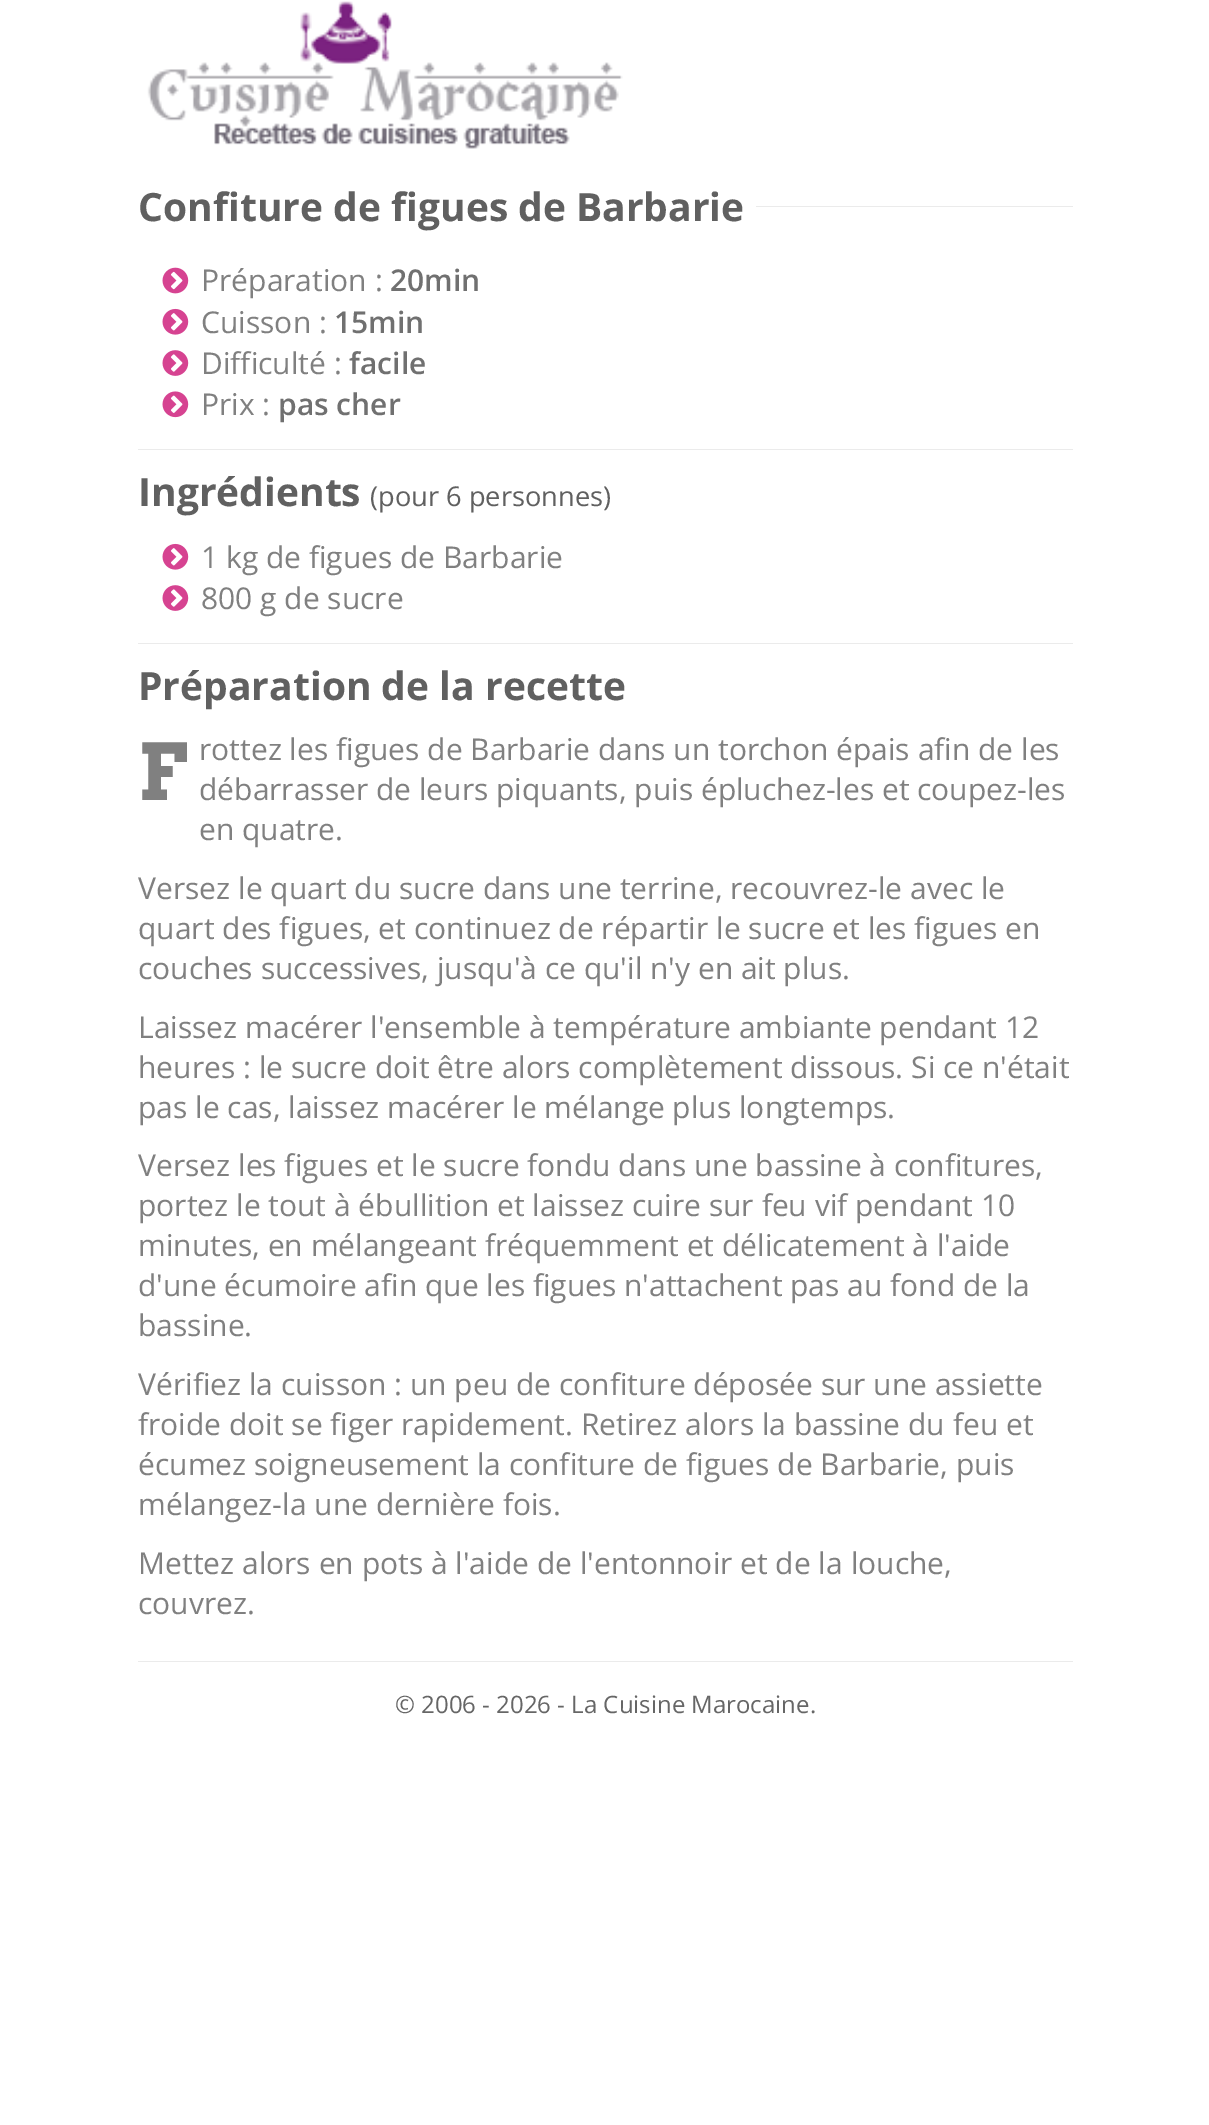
%!PS-Adobe-3.0
%%BoundingBox: 0 0 1209 2125
%%LanguageLevel: 3
%%Pages: 1
%%EndComments
%%BeginProlog
/setink { dup -16 bitshift 255 div exch dup -8 bitshift 255 and 255 div exch 255 and 255 div setrgbcolor } def
/usefont { [ exch dup neg 0 0 3 -1 roll 0 0 ] selectfont } def
/drawimage { 5 dict begin { /h /w /y /x /name } { exch def } forall
  gsave x y translate w h scale
  w h 8 [w 0 0 h 0 0] name (r) file false 3 colorimage grestore end } def
%%EndProlog
%%BeginSetup
<< /PageSize [1209 2125] >> setpagedevice
%%EndSetup
%%Page: 1 1
0 2125 translate 1 -1 scale
4 setmiterlimit
16#FFFFFF setink
0 0 1209 2125 rectfill
(img1.raw) 147 1 476 148 drawimage
/OpenSans-Bold 39 usefont
16#606060 setink
138 221 moveto (Confiture de figues de Barbarie) show
16#EBEBEB setink
756 206 317 1 rectfill
(img2.raw) 162 267 27 27 drawimage
/OpenSans-Regular 30 usefont
16#808080 setink
201 291 moveto (Préparation :) show
/OpenSans-SemiBold 30 usefont
16#707070 setink
390 291 moveto (20min) show
(img3.raw) 162 308 27 27 drawimage
/OpenSans-Regular 30 usefont
16#808080 setink
201 333 moveto (Cuisson :) show
/OpenSans-SemiBold 30 usefont
16#707070 setink
334 333 moveto (15min) show
(img4.raw) 162 350 27 26 drawimage
/OpenSans-Regular 30 usefont
16#808080 setink
201 374 moveto (Difficulté :) show
/OpenSans-SemiBold 30 usefont
16#707070 setink
349 374 moveto (facile) show
(img5.raw) 162 391 27 27 drawimage
/OpenSans-Regular 30 usefont
16#808080 setink
201 415 moveto (Prix :) show
/OpenSans-SemiBold 30 usefont
16#707070 setink
278 415 moveto (pas cher) show
16#EBEBEB setink
138 449 935 1 rectfill
/OpenSans-Bold 39 usefont
16#606060 setink
138 506 moveto (Ingrédients) show
/OpenSans-Regular 27.25 usefont
370 506 moveto (\(pour 6 personnes\)) show
(img3.raw) 162 543 27 27 drawimage
/OpenSans-Regular 30 usefont
16#808080 setink
201 568 moveto (1 kg de figues de Barbarie) show
(img4.raw) 162 585 27 26 drawimage
201 609 moveto (800 g de sucre) show
16#EBEBEB setink
138 643 935 1 rectfill
/OpenSans-Bold 39 usefont
16#606060 setink
138 700 moveto (Préparation de la recette) show
/Arvo-Bold 78 usefont
16#808080 setink
138 800 moveto (F) show
/OpenSans-Regular 30 usefont
[
    [(rottez les figues de Barbarie dans un torchon épais afin de les) 199 760]
    [(débarrasser de leurs piquants, puis épluchez-les et coupez-les) 199 800]
    [(en quatre.) 199 840]
    [(Versez le quart du sucre dans une terrine, recouvrez-le avec le) 138 899]
    [(quart des figues, et continuez de répartir le sucre et les figues en) 138 939]
    [(couches successives, jusqu'à ce qu'il n'y en ait plus.) 138 979]
    [(Laissez macérer l'ensemble à température ambiante pendant 12) 138 1038]
    [(heures : le sucre doit être alors complètement dissous. Si ce n'était) 138 1078]
    [(pas le cas, laissez macérer le mélange plus longtemps.) 138 1118]
    [(Versez les figues et le sucre fondu dans une bassine à confitures,) 138 1176]
    [(portez le tout à ébullition et laissez cuire sur feu vif pendant 10) 138 1216]
    [(minutes, en mélangeant fréquemment et délicatement à l'aide) 138 1256]
    [(d'une écumoire afin que les figues n'attachent pas au fond de la) 138 1296]
    [(bassine.) 138 1336]
    [(Vérifiez la cuisson : un peu de confiture déposée sur une assiette) 138 1395]
    [(froide doit se figer rapidement. Retirez alors la bassine du feu et) 138 1435]
    [(écumez soigneusement la confiture de figues de Barbarie, puis) 138 1475]
    [(mélangez-la une dernière fois.) 138 1515]
    [(Mettez alors en pots à l'aide de l'entonnoir et de la louche,) 138 1574]
    [(couvrez.) 138 1614]
] { aload pop moveto show } forall
16#EBEBEB setink
138 1661 935 1 rectfill
/OpenSans-Regular 24 usefont
16#666666 setink
395 1713 moveto (© 2006 - 2026 - La Cuisine Marocaine.) show
showpage
%%EOF
